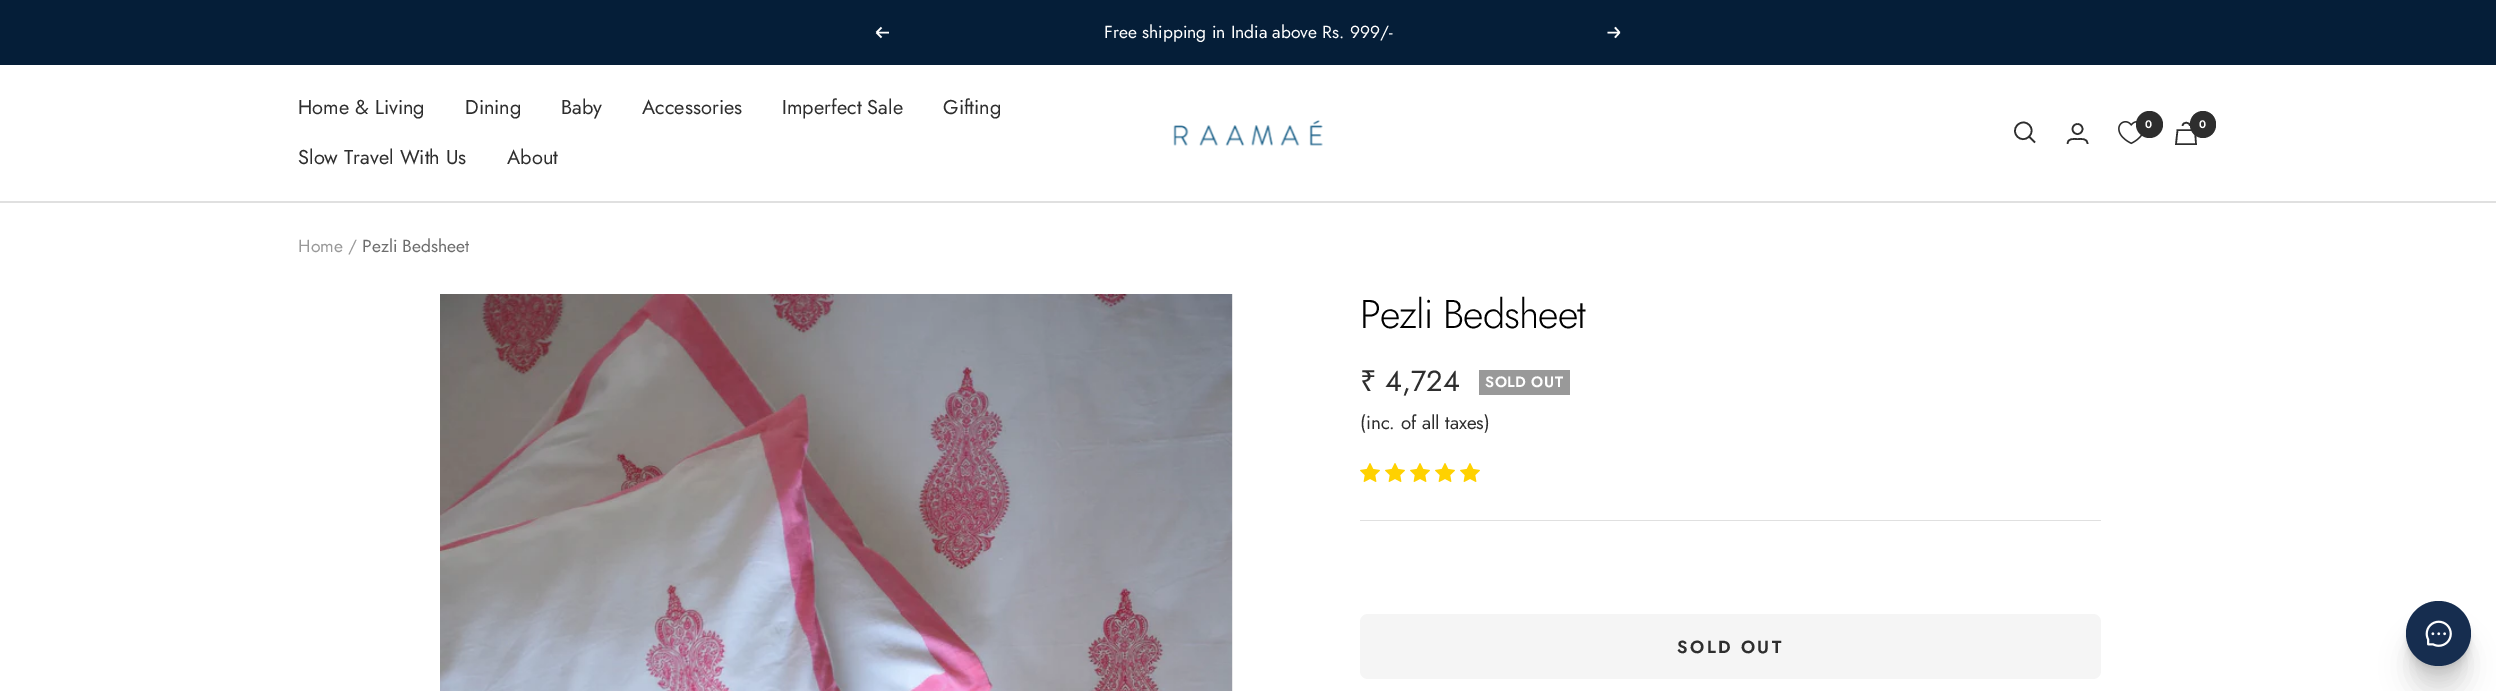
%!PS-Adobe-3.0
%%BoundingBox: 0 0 2496 691
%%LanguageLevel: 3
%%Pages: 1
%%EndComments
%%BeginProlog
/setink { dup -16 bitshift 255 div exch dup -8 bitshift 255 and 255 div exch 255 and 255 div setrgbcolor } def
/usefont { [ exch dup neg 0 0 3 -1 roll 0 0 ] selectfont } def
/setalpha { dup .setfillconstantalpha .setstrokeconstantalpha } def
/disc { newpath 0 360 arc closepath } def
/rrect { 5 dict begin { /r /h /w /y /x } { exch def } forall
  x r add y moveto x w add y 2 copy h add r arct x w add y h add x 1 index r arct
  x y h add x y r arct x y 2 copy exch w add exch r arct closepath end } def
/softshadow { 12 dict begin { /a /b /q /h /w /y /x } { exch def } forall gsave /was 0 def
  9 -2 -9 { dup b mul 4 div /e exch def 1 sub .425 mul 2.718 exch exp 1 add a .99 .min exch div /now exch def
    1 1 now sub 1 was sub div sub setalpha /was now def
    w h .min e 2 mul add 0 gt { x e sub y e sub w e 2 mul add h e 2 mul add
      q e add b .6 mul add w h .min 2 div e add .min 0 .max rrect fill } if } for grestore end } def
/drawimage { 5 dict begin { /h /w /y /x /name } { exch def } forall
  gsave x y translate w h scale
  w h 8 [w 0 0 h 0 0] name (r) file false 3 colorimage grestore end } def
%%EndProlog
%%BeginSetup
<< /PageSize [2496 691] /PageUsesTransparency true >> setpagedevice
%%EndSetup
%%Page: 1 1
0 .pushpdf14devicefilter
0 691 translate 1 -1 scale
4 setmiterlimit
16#FFFFFF setink
0 0 2496 691 rectfill
16#051E38 setink
0 0 2496 65 rectfill
16#FFFFFF setink
1.6 setlinewidth
889 32.5 moveto 876.5 32.5 lineto 876.5 32.5 moveto 881.5 37.5 lineto 876.5 32.5 moveto 881.5 27.5 lineto stroke
/Jost-Regular 17.5 usefont
1104 38 moveto (Free shipping in India above Rs. 999/-) show
1607.5 32.5 moveto 1619.5 32.5 lineto 1619.5 32.5 moveto 1615 37.5 lineto 1619.5 32.5 moveto 1615 27.5 lineto stroke
16#E0E0E0 setink
0 201 2496 2 rectfill
/Jost-Regular 20 usefont
16#2E2E2E setink
[
    [(Home & Living) 298 114]
    [(Dining) 465 114]
    [(Baby) 561 114]
    [(Accessories) 642 114]
    [(Imperfect Sale) 782 114]
    [(Gifting) 943 114]
    [(Slow Travel With Us) 298 164]
    [(About) 507 164]
] { aload pop moveto show } forall
(img1.raw) 1173 120 150 26 drawimage
2029 136.5 moveto 2037 129 2025.5 117 2017.5 125 curveto 2009.5 133 2021.5 144.5 2029 136.5 curveto closepath 2029 136.5 moveto 2035 142.5 lineto stroke
2077.5 129 5 disc stroke
2067.5 144 moveto 2067.5 138 2073.5 139 2077.5 139 curveto 2081.5 139 2087.5 138 2087.5 144 curveto stroke
(img2.raw) 2118 121 25 24 drawimage
2149.5 124.5 13.5 disc fill
/Jost-SemiBold 11 usefont
16#FFFFFF setink
2145 128 moveto (0) show
16#2E2E2E setink
2177.5 130 moveto 2195 130 lineto 2196 144 lineto 2176 144 lineto closepath 2190 126 moveto 2190 121.5 2182.5 121.5 2182.5 126 curveto stroke
2190 111 26 27 13 rrect fill
16#FFFFFF setink
2199 128 moveto (0) show
/Jost-Regular 17.5 usefont
16#999999 setink
298 252 moveto (Home /) show
16#6D6D6D setink
362 252 moveto (Pezli Bedsheet) show
16#F5F5F5 setink
1232 294 1 397 rectfill
(img3.raw) 440 294 793 397 drawimage
16#E0E0E0 setink
1360 520 741 1 rectfill
/Jost-Light 40 usefont
16#000000 setink
1360 328 moveto -1 0 (Pezli Bedsheet) ashow
/NotoSans-Regular 29 usefont
16#2E2E2E setink
1360 391 moveto (₹) show
/Jost-Regular 29 usefont
1385 391 moveto (4,724) show
16#999999 setink
1479 370 91 25 rectfill
/Jost-SemiBold 15 usefont
16#FFFFFF setink
1485 387 moveto 0.5 0 (SOLD OUT) ashow
/Jost-Regular 18.75 usefont
16#2E2E2E setink
1360 429 moveto (\(inc. of all taxes\)) show
(img4.raw) 1360 463 20 19 drawimage
(img4.raw) 1385 463 20 19 drawimage
(img4.raw) 1410 463 20 19 drawimage
(img4.raw) 1435 463 20 19 drawimage
(img4.raw) 1460 463 20 19 drawimage
16#F5F5F5 setink
1360 614 741 65 8 rrect fill
/Jost-SemiBold 17.5 usefont
16#2E2E2E setink
1677 653 moveto 2.5 0 (SOLD OUT) ashow
16#000000 setink
2406 633 65 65 32.5 12.5 0.1 softshadow
2406 618 65 65 32.5 6 0.06 softshadow
2406 609 65 65 32.5 2.5 0.06 softshadow
2406 604 65 65 32.5 1 0.04 softshadow
16#162D4F setink
2438.5 633.5 32.5 disc fill
(img5.raw) 2425 620 27 27 drawimage
.poppdf14devicefilter showpage
%%EOF
